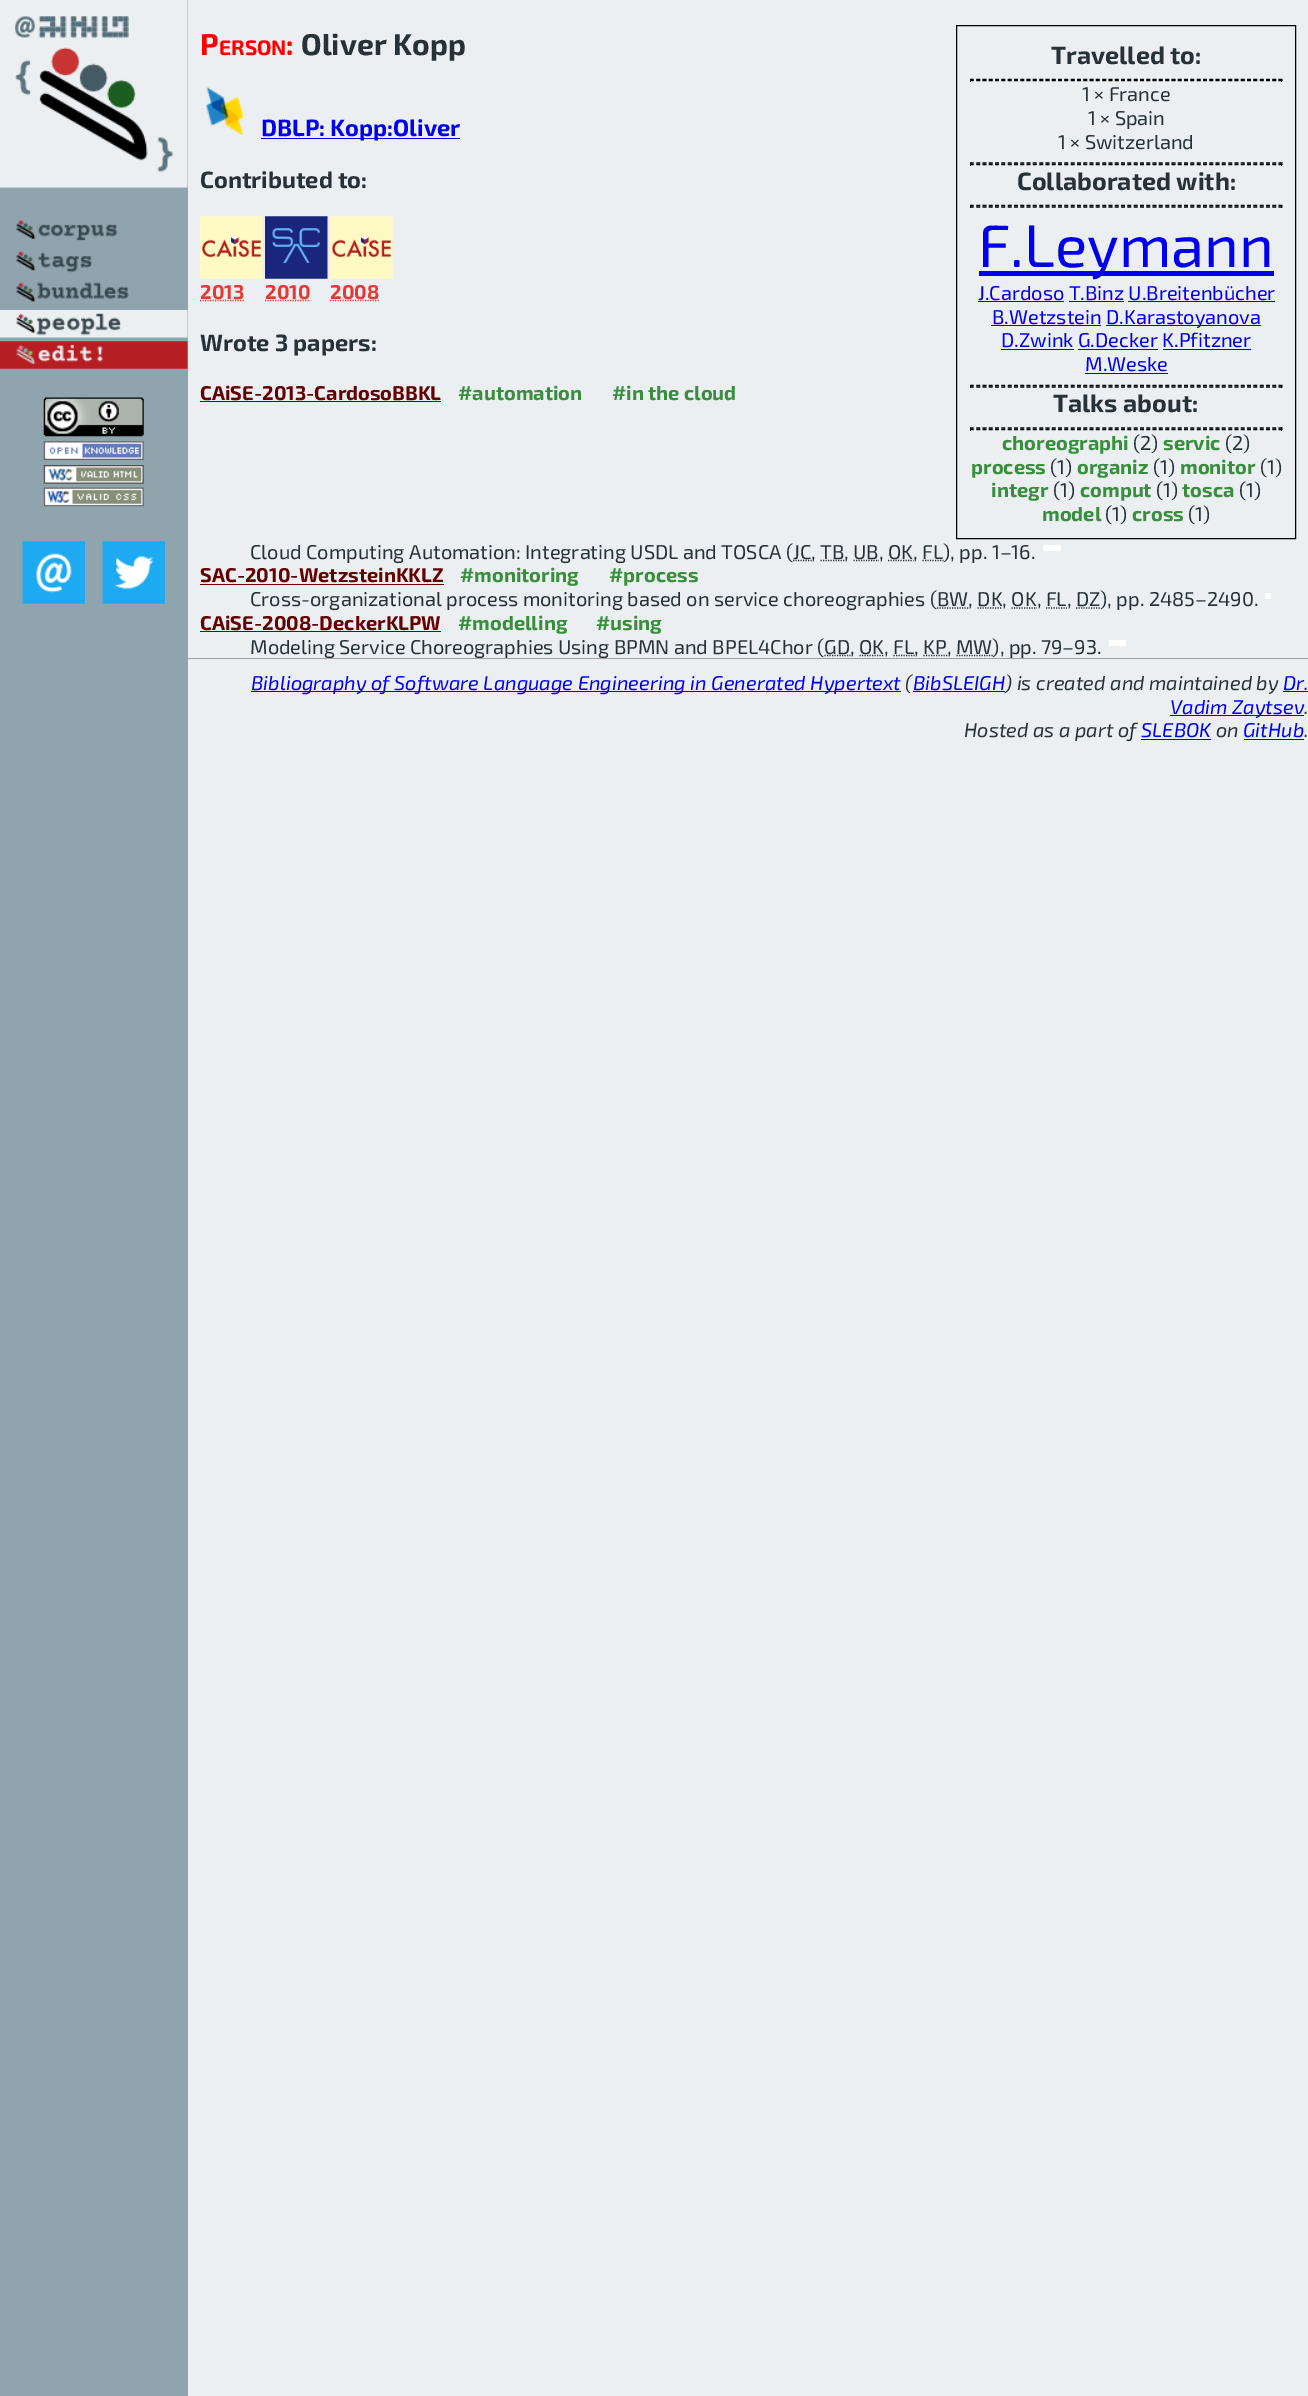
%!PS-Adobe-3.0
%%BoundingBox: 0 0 1308 2396
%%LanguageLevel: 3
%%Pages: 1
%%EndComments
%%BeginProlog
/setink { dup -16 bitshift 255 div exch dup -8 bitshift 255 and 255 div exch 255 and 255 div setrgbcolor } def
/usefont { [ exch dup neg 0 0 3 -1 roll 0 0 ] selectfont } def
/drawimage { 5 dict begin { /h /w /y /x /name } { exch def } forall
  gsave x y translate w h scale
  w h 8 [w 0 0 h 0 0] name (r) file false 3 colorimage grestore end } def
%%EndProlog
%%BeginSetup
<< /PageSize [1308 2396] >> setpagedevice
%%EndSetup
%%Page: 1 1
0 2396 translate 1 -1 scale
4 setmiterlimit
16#ECEFF1 setink
0 0 1308 2396 rectfill
16#90A4AE setink
0 0 188 2396 rectfill
(img1.raw) 0 0 188 188 drawimage
(img2.raw) 16 219 102 22 drawimage
(img3.raw) 16 251 76 22 drawimage
(img4.raw) 16 282 113 21 drawimage
(img5.raw) 0 310 188 28 drawimage
(img6.raw) 0 341 188 28 drawimage
(img7.raw) 43 397 101 40 drawimage
(img8.raw) 43 441 101 19 drawimage
(img9.raw) 43 465 101 19 drawimage
(img10.raw) 43 487 101 20 drawimage
(img11.raw) 22 541 63 63 drawimage
(img12.raw) 102 541 63 63 drawimage
/Exo2-Bold 30 usefont
16#FF0000 setink
200 55 moveto (P) show
/Exo2-Bold 21 usefont
219 55 moveto (ERSON) show
/Exo2-Bold 30 usefont
286 55 moveto (:) show
16#263238 setink
301 55 moveto (Oliver Kopp) show
16#000000 setink
956.5 25.5 339 513 rectstroke
/Exo2-Bold 25 usefont
16#263238 setink
1051 64 moveto (Travelled to:) show
16#000000 setink
1.2 setlinewidth
[3.75 2.55] 0 setdash
970 79.5 moveto 1282.5 79.5 lineto stroke
1281 79 1 3 rectfill
970 80.5 moveto 1282.5 80.5 lineto stroke
970 79 1 3 rectfill
/Exo2-Regular 20 usefont
16#263238 setink
[
    [(1 × France) 1082 101]
    [(1 × Spain) 1088 125]
    [(1 × Switzerland) 1058 149]
] { aload pop moveto show } forall
16#000000 setink
970 163 moveto 1282.5 163 lineto stroke
1281 163 1 3 rectfill
970 164.5 moveto 1282.5 164.5 lineto stroke
970 163 1 3 rectfill
/Exo2-Bold 25 usefont
16#263238 setink
1017 190 moveto (Collaborated with:) show
16#000000 setink
970 205.5 moveto 1282.5 205.5 lineto stroke
1281 205 1 3 rectfill
970 207 moveto 1282.5 207 lineto stroke
970 205 1 3 rectfill
16#0000EE setink
979 271 295 5 rectfill
/Exo2-Regular 60 usefont
978 267 moveto (F.Leymann) show
/Exo2-Regular 20 usefont
978 300 moveto (J.Cardoso T.Binz U.Breitenbücher) show
[
    [978 301 86 1 16#0000EE]
    [1069 301 55 1 16#0000EE]
    [1128 301 147 1 16#0000EE]
] { aload pop setink rectfill } forall
992 324 moveto (B.Wetzstein) show
991 325 110 1 rectfill
1106 325 155 1 rectfill
1106 324 moveto (D.Karastoyanova) show
1001 347 moveto (D.Zwink G.Decker K.Pfitzner) show
[
    [1001 349 73 1 16#0000EE]
    [1078 349 80 1 16#0000EE]
    [1163 349 88 1 16#0000EE]
] { aload pop setink rectfill } forall
1085 371 moveto (M.Weske) show
1085 373 83 1 rectfill
16#000000 setink
970 385.5 moveto 1282.5 385.5 lineto stroke
1281 385 1 3 rectfill
970 387 moveto 1282.5 387 lineto stroke
970 385 1 3 rectfill
/Exo2-Bold 25 usefont
16#263238 setink
1053 412 moveto (Talks about:) show
16#000000 setink
970 428 moveto 1282.5 428 lineto stroke
1281 428 1 3 rectfill
970 429.5 moveto 1282.5 429.5 lineto stroke
970 428 1 3 rectfill
/Exo2-Bold 20 usefont
16#388E3C setink
1002 450 moveto (choreographi) show
/Exo2-Regular 20 usefont
16#263238 setink
1133 450 moveto (\(2\)) show
/Exo2-Bold 20 usefont
16#388E3C setink
1163 450 moveto (servic) show
/Exo2-Regular 20 usefont
16#263238 setink
1225 450 moveto (\(2\)) show
/Exo2-Bold 20 usefont
16#388E3C setink
971 474 moveto (process) show
/Exo2-Regular 20 usefont
16#263238 setink
1050 474 moveto (\(1\)) show
/Exo2-Bold 20 usefont
16#388E3C setink
1077 474 moveto (organiz) show
/Exo2-Regular 20 usefont
16#263238 setink
1153 474 moveto (\(1\)) show
/Exo2-Bold 20 usefont
16#388E3C setink
1180 474 moveto (monitor) show
/Exo2-Regular 20 usefont
16#263238 setink
1260 474 moveto (\(1\)) show
/Exo2-Bold 20 usefont
16#388E3C setink
991 497 moveto (integr) show
/Exo2-Regular 20 usefont
16#263238 setink
1053 497 moveto (\(1\)) show
/Exo2-Bold 20 usefont
16#388E3C setink
1080 497 moveto (comput) show
/Exo2-Regular 20 usefont
16#263238 setink
1156 497 moveto (\(1\)) show
/Exo2-Bold 20 usefont
16#388E3C setink
1182 497 moveto (tosca) show
/Exo2-Regular 20 usefont
16#263238 setink
1239 497 moveto (\(1\)) show
/Exo2-Bold 20 usefont
16#388E3C setink
1042 521 moveto (model) show
/Exo2-Regular 20 usefont
16#263238 setink
1105 521 moveto (\(1\)) show
/Exo2-Bold 20 usefont
16#388E3C setink
1132 521 moveto (cross) show
/Exo2-Regular 20 usefont
16#263238 setink
1188 521 moveto (\(1\)) show
(img13.raw) 206 87 38 49 drawimage
16#0000EE setink
261 138 199 1 rectfill
/Exo2-Bold 23.5 usefont
261 136 moveto (DBLP: Kopp:Oliver) show
16#263238 setink
200 188 moveto (Contributed to:) show
(img14.raw) 200 216 63 63 drawimage
16#E53935 setink
[1.25 1.25] 0 setdash
200 300.5 moveto 244 300.5 lineto stroke
/Exo2-Bold 20 usefont
200 299 moveto (2013) show
(img15.raw) 265 216 63 63 drawimage
265 300.5 moveto 310.5 300.5 lineto stroke
265 299 moveto (2010) show
(img16.raw) 330 216 63 63 drawimage
330 300.5 moveto 379.5 300.5 lineto stroke
330 299 moveto (2008) show
/Exo2-Bold 23.5 usefont
16#263238 setink
200 351 moveto (Wrote 3 papers:) show
/Exo2-Bold 20 usefont
16#660000 setink
200 400 moveto (CAiSE-2013-CardosoBBKL) show
200 401 241 1 rectfill
16#388E3C setink
458 400 moveto (#automation) show
612 400 moveto (#in the cloud) show
/Exo2-Regular 20 usefont
16#263238 setink
250 559 moveto (Cloud Computing Automation: Integrating USDL and TOSCA \() show
793 560.5 moveto 811.5 560.5 lineto stroke
793 559 moveto (JC,) show
820.5 560.5 moveto 844.5 560.5 lineto stroke
820 559 moveto (TB,) show
853.5 560.5 moveto 879 560.5 lineto stroke
853 559 moveto (UB,) show
888 560.5 moveto 913.5 560.5 lineto stroke
888 559 moveto (OK, FL\), pp. 1–16.) show
922.5 560.5 moveto 943.5 560.5 lineto stroke
16#FFFFFF setink
1043 545 18 6 rectfill
/Exo2-Bold 20 usefont
16#660000 setink
200 582 moveto (SAC-2010-WetzsteinKKLZ) show
200 584 244 1 rectfill
16#388E3C setink
460 582 moveto (#monitoring) show
609 582 moveto (#process) show
/Exo2-Regular 20 usefont
16#263238 setink
250 606 moveto (Cross-organizational process monitoring based on service choreographies \(BW, DK, OK, FL, DZ\), pp. 2485–2490.) show
937 608 moveto 968.5 608 lineto stroke
977.5 608 moveto 1002.5 608 lineto 1011.5 608 moveto 1037 608 lineto stroke
1046 608 moveto 1067 608 lineto 1076 608 moveto 1100.5 608 lineto stroke
16#FFFFFF setink
1265 593 6 6 rectfill
/Exo2-Bold 20 usefont
16#660000 setink
200 630 moveto (CAiSE-2008-DeckerKLPW) show
200 631 241 1 rectfill
16#388E3C setink
458 630 moveto (#modelling) show
596 630 moveto (#using) show
/Exo2-Regular 20 usefont
16#263238 setink
250 654 moveto (Modeling Service Choreographies Using BPMN and BPEL4Chor \() show
824.5 655.5 moveto 850.5 655.5 lineto stroke
824 654 moveto (GD,) show
859.5 655.5 moveto 884.5 655.5 lineto stroke
859 654 moveto (OK, FL, KP, MW\), pp. 79–93.) show
893.5 655.5 moveto 914.5 655.5 lineto 923.5 655.5 moveto 947.5 655.5 lineto stroke
956.5 655.5 moveto 993 655.5 lineto stroke
[
    [1109 640 17 6 16#FFFFFF]
    [188 658 1120 1 16#9F9F9F]
    [188 659 1120 1 16#EEEEEE]
    [251 691 650 1 16#0000EE]
] { aload pop setink rectfill } forall
/Exo2-Italic 20 usefont
251 690 moveto (Bibliography of Software Language Engineering in Generated Hypertext) show
16#263238 setink
905 690 moveto (\() show
16#0000EE setink
913 690 moveto (BibSLEIGH) show
913 691 92 1 rectfill
16#263238 setink
1005 690 moveto (\) is created and maintained by) show
16#0000EE setink
1283 690 moveto (Dr.) show
1283 691 25 1 rectfill
1170 715 134 1 rectfill
1170 714 moveto (Vadim Zaytsev) show
16#263238 setink
1304 714 moveto (.) show
964 737 moveto (Hosted as a part of) show
16#0000EE setink
1141 739 70 1 rectfill
1141 737 moveto (SLEBOK) show
16#263238 setink
1216 737 moveto (on) show
16#0000EE setink
1243 737 moveto (GitHub) show
16#263238 setink
1304 737 moveto (.) show
16#0000EE setink
1244 739 60 1 rectfill
showpage
%%EOF
